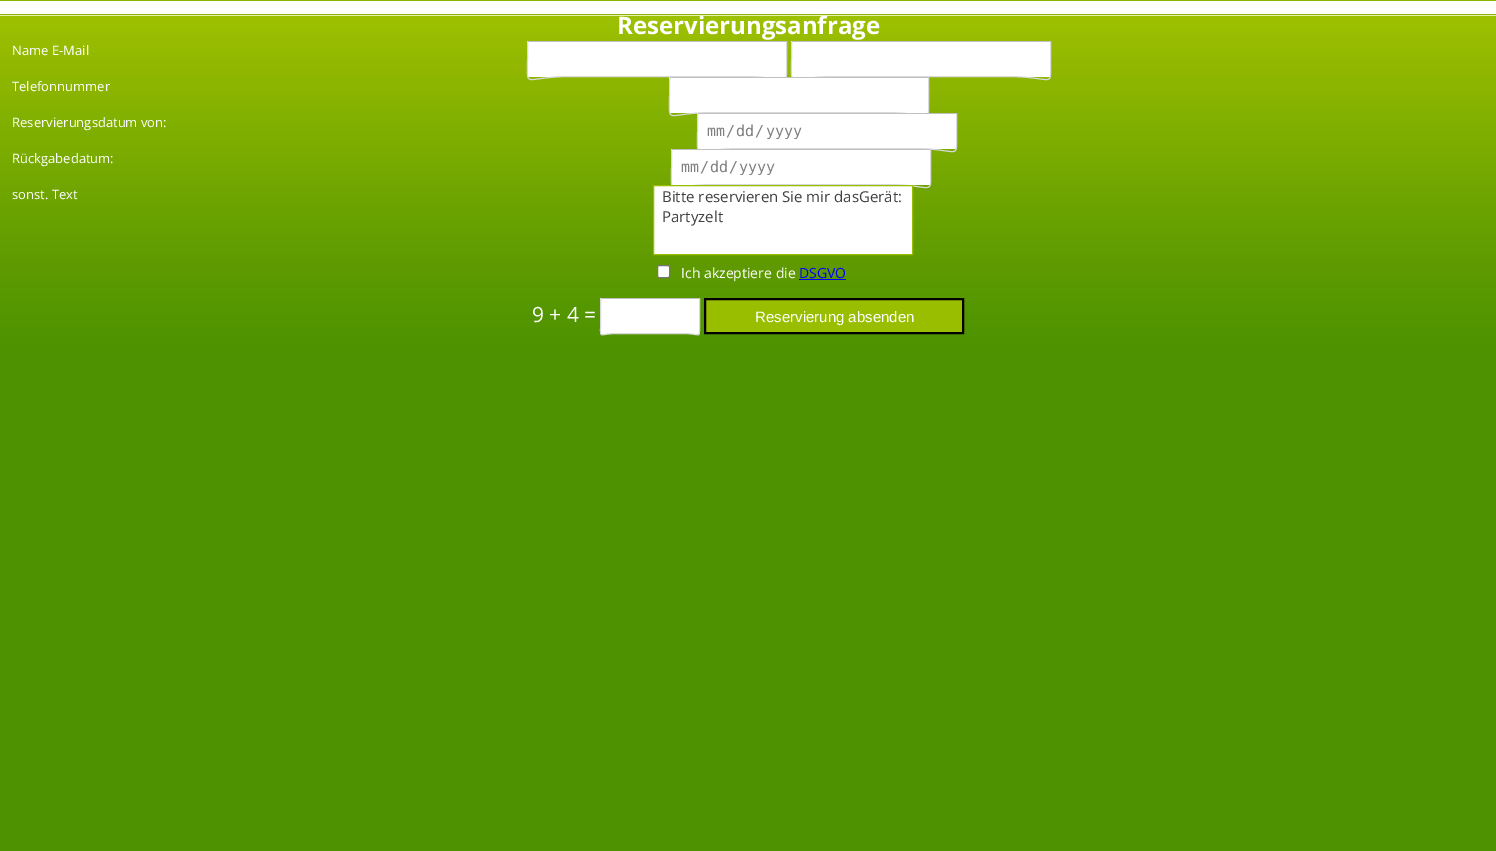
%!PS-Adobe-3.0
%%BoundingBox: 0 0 1496 851
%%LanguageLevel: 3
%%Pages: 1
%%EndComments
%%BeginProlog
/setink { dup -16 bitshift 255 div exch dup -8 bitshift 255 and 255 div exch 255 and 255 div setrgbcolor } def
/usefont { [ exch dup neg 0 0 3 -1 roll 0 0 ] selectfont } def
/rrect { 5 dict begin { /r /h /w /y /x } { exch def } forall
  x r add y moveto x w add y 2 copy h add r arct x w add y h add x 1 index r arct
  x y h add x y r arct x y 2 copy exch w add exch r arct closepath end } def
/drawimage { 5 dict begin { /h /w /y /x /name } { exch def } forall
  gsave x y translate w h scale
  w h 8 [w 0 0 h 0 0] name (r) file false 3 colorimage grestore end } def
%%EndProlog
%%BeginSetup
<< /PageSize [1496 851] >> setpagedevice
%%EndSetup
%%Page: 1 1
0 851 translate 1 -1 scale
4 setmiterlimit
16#FFFFFF setink
0 0 1496 851 rectfill
(img1.raw) 0 0 1496 851 drawimage
/OpenSans-Bold 24 usefont
617 34 moveto (Reservierungsanfrage) show
/OpenSans-Regular 13 usefont
12 55 moveto (Name) show
52 55 moveto (E-Mail) show
527 41 260 36 1 rrect fill
16#C0C0C0 setink
528 41 259 1 rectfill
16#D9D9D9 setink
786.5 41.5 moveto 786.5 59 lineto 786.5 90.5 791.5 76.5 743 76.5 curveto 571 76.5 lineto 522.5 76.5 527.5 90.5 527.5 59 curveto 527.5 41.5 lineto stroke
16#FFFFFF setink
791 41 260 36 1 rrect fill
16#C0C0C0 setink
792 41 259 1 rectfill
16#D9D9D9 setink
1050.5 41.5 moveto 1050.5 59 lineto 1050.5 90.5 1055.5 76.5 1007 76.5 curveto 835 76.5 lineto 786.5 76.5 791.5 90.5 791.5 59 curveto 791.5 41.5 lineto stroke
16#FFFFFF setink
12 91 moveto (Telefonnummer) show
669 77 260 36 1 rrect fill
16#C0C0C0 setink
670 77 259 1 rectfill
16#D9D9D9 setink
928.5 77.5 moveto 928.5 95 lineto 928.5 126.5 933.5 112.5 885 112.5 curveto 713 112.5 lineto 664.5 112.5 669.5 126.5 669.5 95 curveto 669.5 77.5 lineto stroke
16#FFFFFF setink
12 127 moveto (Reservierungsdatum von:) show
697 113 260 36 1 rrect fill
16#C0C0C0 setink
698 113 259 1 rectfill
16#D9D9D9 setink
956.5 113.5 moveto 956.5 131 lineto 956.5 162.5 961.5 148.5 913 148.5 curveto 741 148.5 lineto 692.5 148.5 697.5 162.5 697.5 131 curveto 697.5 113.5 lineto stroke
/DejaVuSansMono-Regular 15 usefont
16#808080 setink
[
    [(mm) 707 136]
    [(/) 726 136]
    [(dd) 736 136]
    [(/) 755 136]
    [(yyyy) 766 136]
] { aload pop moveto show } forall
/OpenSans-Regular 13 usefont
16#FFFFFF setink
12 163 moveto (Rückgabedatum:) show
671 149 260 36 1 rrect fill
16#C0C0C0 setink
672 149 259 1 rectfill
16#D9D9D9 setink
930.5 149.5 moveto 930.5 167 lineto 930.5 198.5 935.5 184.5 887 184.5 curveto 715 184.5 lineto 666.5 184.5 671.5 198.5 671.5 167 curveto 671.5 149.5 lineto stroke
/DejaVuSansMono-Regular 15 usefont
16#808080 setink
[
    [(mm) 681 172]
    [(/) 700 172]
    [(dd) 710 172]
    [(/) 729 172]
    [(yyyy) 739 172]
] { aload pop moveto show } forall
/OpenSans-Regular 13 usefont
16#FFFFFF setink
12 199 moveto (sonst. Text) show
653.5 185.5 259 69 0.5 rrect gsave fill grestore
16#99BE00 setink
stroke
/OpenSans-Regular 15 usefont
16#404040 setink
662 202 moveto (Bitte reservieren Sie mir dasGerät:) show
662 222 moveto (Partyzelt) show
16#FFFFFF setink
657.5 265.5 12 12 1.5 rrect gsave fill grestore
16#767676 setink
stroke
/OpenSans-Regular 14 usefont
16#FFFFFF setink
681 278 moveto (Ich akzeptiere die) show
16#0000FF setink
799 278 moveto (DSGVO) show
799 279 47 1 rectfill
/OpenSans-Regular 21 usefont
16#FFFFFF setink
532 322 moveto (9 + 4 =) show
600 298 100 36 1 rrect fill
16#C0C0C0 setink
601 298 99 1 rectfill
16#D9D9D9 setink
699.5 298.5 moveto 699.5 327.5 lineto 699.5 339 700.5 333.5 682.5 333.5 curveto 617.5 333.5 lineto 599.5 333.5 600.5 339 600.5 327.5 curveto 600.5 298.5 lineto stroke
16#99BE00 setink
705 299 moveto 963 299 lineto 963 333 lineto 705 333 lineto closepath gsave fill grestore
16#000000 setink
2 setlinewidth
stroke
/LiberationSans-Regular 15 usefont
16#FFFFFF setink
755 322 moveto (Reservierung absenden) show
showpage
%%EOF
